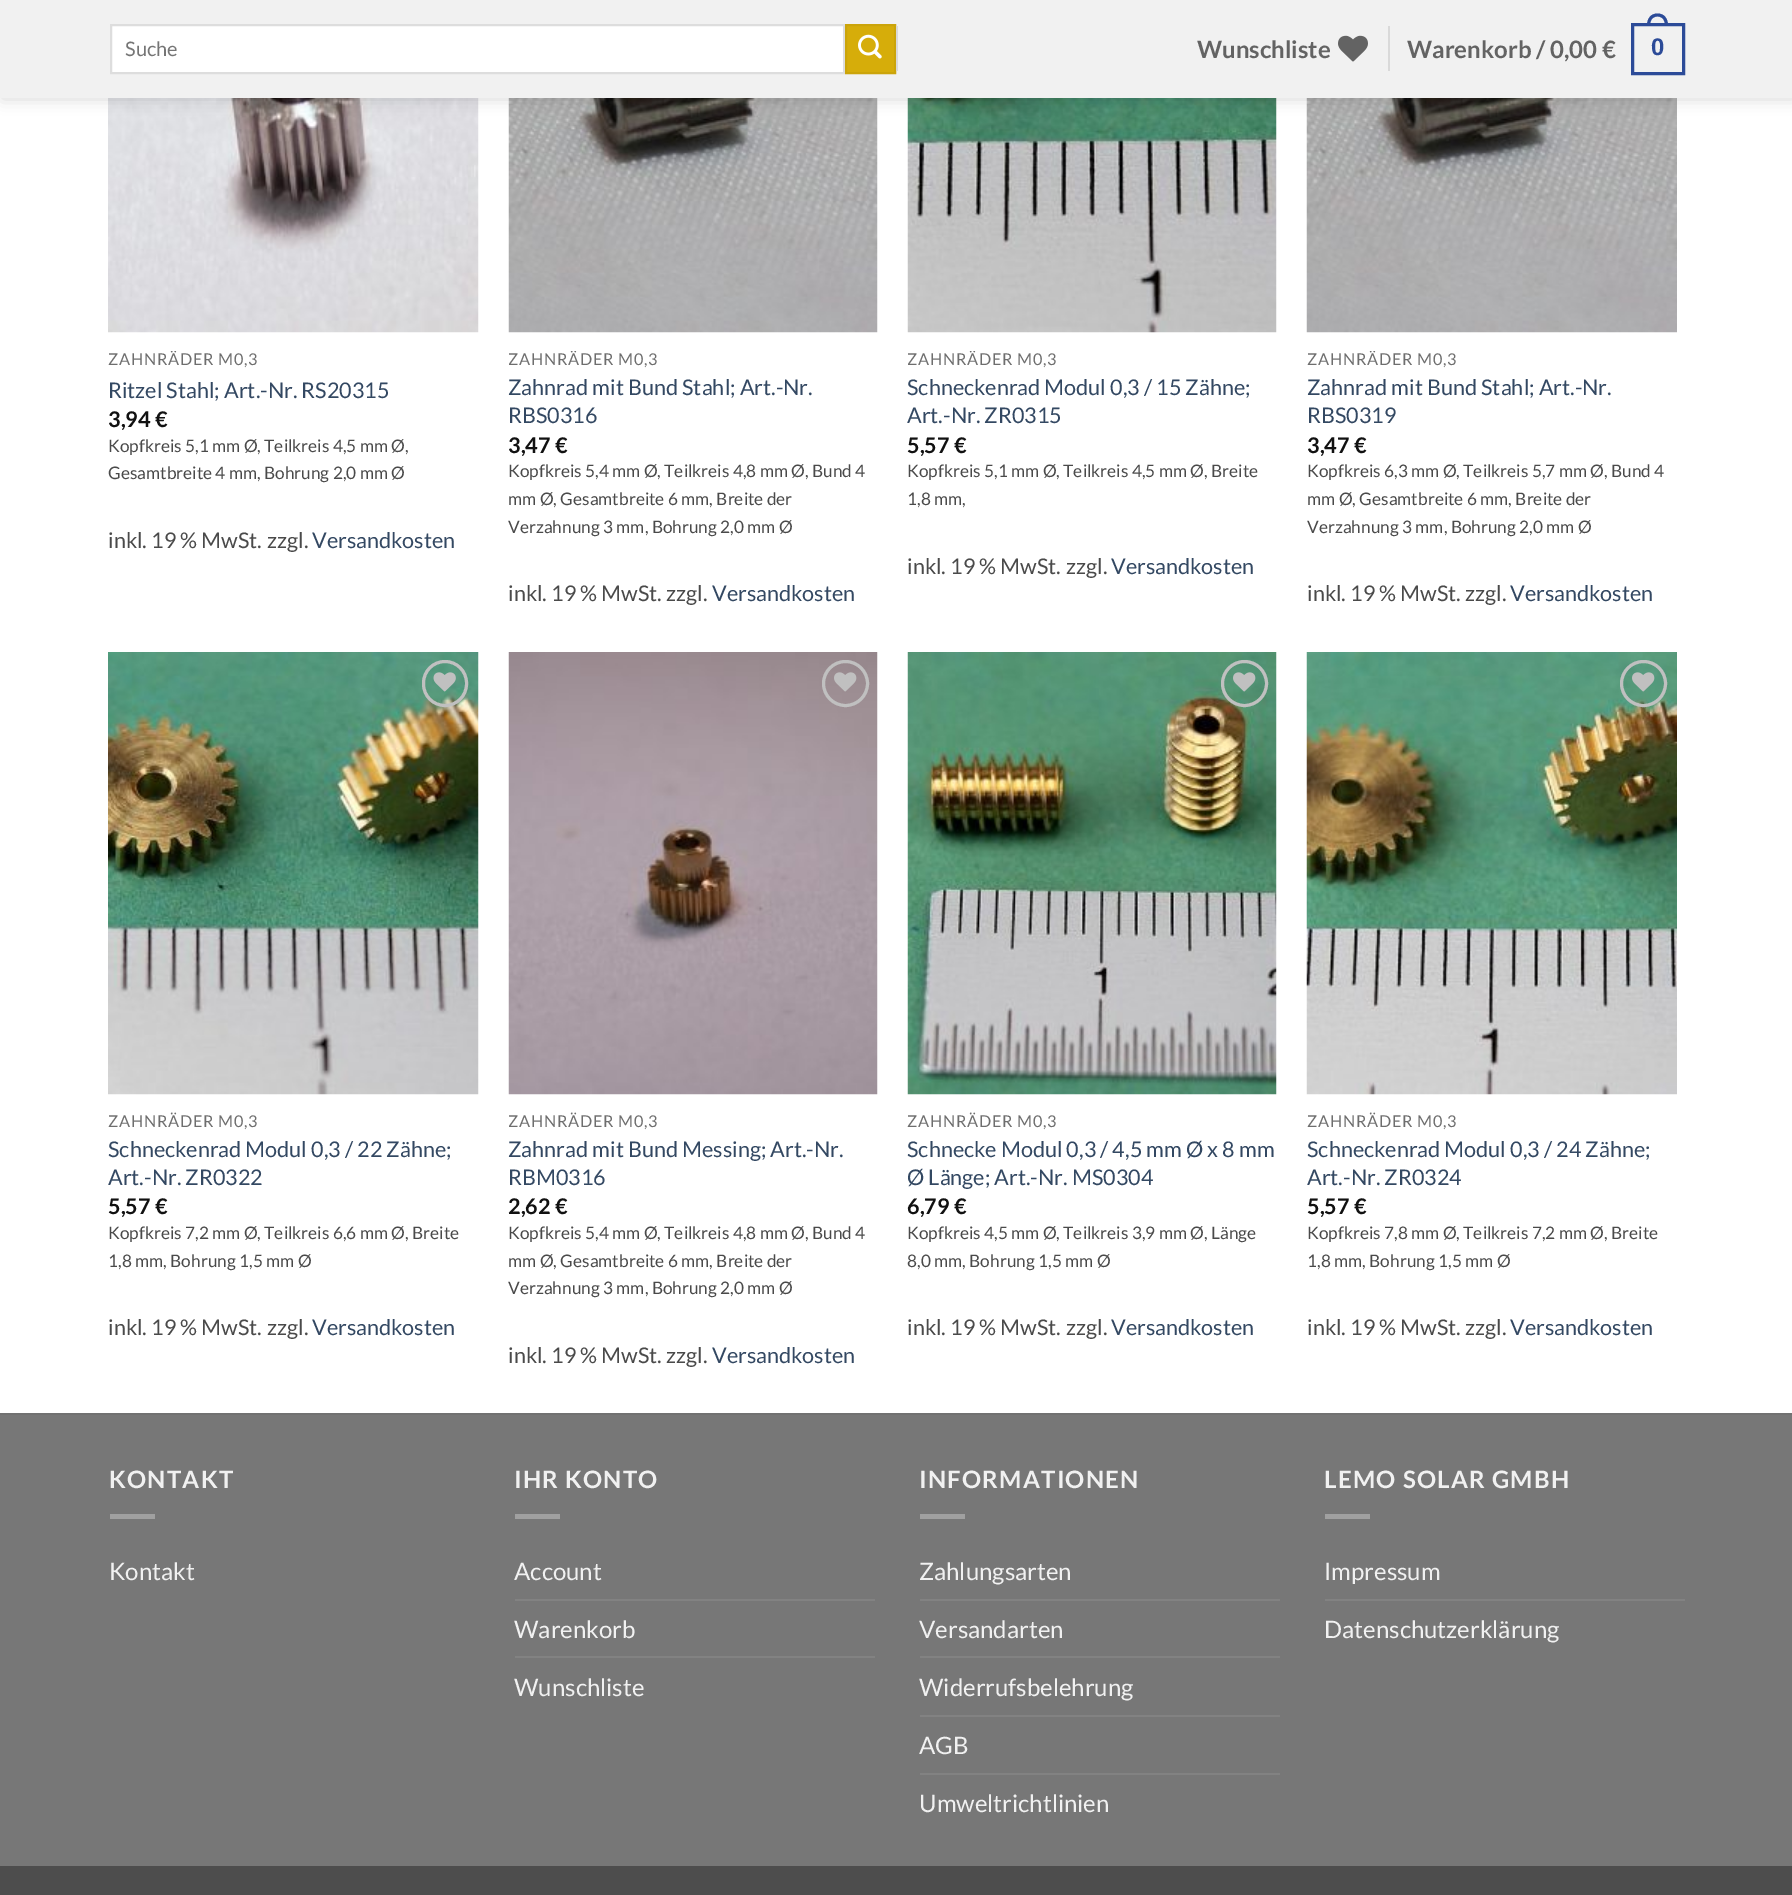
%!PS-Adobe-3.0
%%BoundingBox: 0 0 1792 1895
%%LanguageLevel: 3
%%Pages: 1
%%EndComments
%%BeginProlog
/setink { dup -16 bitshift 255 div exch dup -8 bitshift 255 and 255 div exch 255 and 255 div setrgbcolor } def
/usefont { [ exch dup neg 0 0 3 -1 roll 0 0 ] selectfont } def
/setalpha { dup .setfillconstantalpha .setstrokeconstantalpha } def
/disc { newpath 0 360 arc closepath } def
/rrect { 5 dict begin { /r /h /w /y /x } { exch def } forall
  x r add y moveto x w add y 2 copy h add r arct x w add y h add x 1 index r arct
  x y h add x y r arct x y 2 copy exch w add exch r arct closepath end } def
/softshadow { 12 dict begin { /a /b /q /h /w /y /x } { exch def } forall gsave /was 0 def
  9 -2 -9 { dup b mul 4 div /e exch def 1 sub .425 mul 2.718 exch exp 1 add a .99 .min exch div /now exch def
    1 1 now sub 1 was sub div sub setalpha /was now def
    w h .min e 2 mul add 0 gt { x e sub y e sub w e 2 mul add h e 2 mul add
      q e add b .6 mul add w h .min 2 div e add .min 0 .max rrect fill } if } for grestore end } def
/drawimage { 5 dict begin { /h /w /y /x /name } { exch def } forall
  gsave x y translate w h scale
  w h 8 [w 0 0 h 0 0] name (r) file false 3 colorimage grestore end } def
%%EndProlog
%%BeginSetup
<< /PageSize [1792 1895] /PageUsesTransparency true >> setpagedevice
%%EndSetup
%%Page: 1 1
0 .pushpdf14devicefilter
0 1895 translate 1 -1 scale
4 setmiterlimit
16#FFFFFF setink
0 0 1792 1895 rectfill
(img3.raw) 108 98 371 235 drawimage
(img4.raw) 508 98 370 235 drawimage
(img5.raw) 907 98 370 235 drawimage
(img6.raw) 1306 98 371 235 drawimage
16#000000 setink
2 2 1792 97 0 7.5 0.15 softshadow
16#F1F1F1 setink
0 0 1792 98 rectfill
16#FFFFFF setink
111 25 moveto 844 25 lineto 844 73 lineto 111 73 lineto closepath gsave fill grestore
16#DDDDDD setink
2 setlinewidth
stroke
/Lato-Regular 20 usefont
16#757575 setink
125 56 moveto (Suche) show
16#D6AD0A setink
846 25 moveto 895 25 lineto 895 73 lineto 846 73 lineto closepath gsave fill grestore
16#CBA40A setink
stroke
(img1.raw) 858 34 24 25 drawimage
16#D9D9D9 setink
896 26 2 45 rectfill
/Lato-Bold 24 usefont
16#636363 setink
1197 58 moveto (Wunschliste) show
(img2.raw) 1338 35 30 27 drawimage
16#D9D9D9 setink
1388 26 2 45 rectfill
16#636363 setink
1407 58 moveto (Warenkorb / 0,00 €) show
16#2C4B98 setink
3 setlinewidth
1632.5 24.5 51 49 rectstroke
1657.5 13.5 moveto 1664.5 13.5 1668 19 1668 25.5 curveto 1647 25.5 lineto 1647 19 1650.5 13.5 1657.5 13.5 curveto closepath 1657.5 16.5 moveto 1663 16.5 1665 21 1665 25.5 curveto 1650 25.5 lineto 1650 21 1652 16.5 1657.5 16.5 curveto closepath eofill
/LiberationSans-Bold 24 usefont
1651 55 moveto (0) show
gsave
108 351 371 20 rectclip
/Lato-Regular 16.25 usefont
16#6E6E6E setink
108 365 moveto 0.75 0 (ZAHNRÄDER M0,3) ashow
grestore
/Lato-Regular 21.6 usefont
16#334862 setink
108 398 moveto (Ritzel Stahl; Art.-Nr. RS20315) show
/Lato-Bold 21.6 usefont
16#111111 setink
108 427 moveto (3,94 €) show
/Lato-Regular 17.25 usefont
16#4A4A4A setink
108 452 moveto (Kopfkreis 5,1 mm Ø, Teilkreis 4,5 mm Ø,) show
108 479 moveto (Gesamtbreite 4 mm, Bohrung 2,0 mm Ø) show
/Lato-Regular 21.6 usefont
108 548 moveto (inkl. 19 % MwSt.) show
267 548 moveto (zzgl.) show
16#334862 setink
312 548 moveto (Versandkosten) show
gsave
509 351 369 20 rectclip
/Lato-Regular 16.25 usefont
16#6E6E6E setink
508 365 moveto 0.75 0 (ZAHNRÄDER M0,3) ashow
grestore
508 395 moveto (Zahnrad mit Bund Stahl; Art.-Nr.) show
508 423 moveto (RBS0316) show
/Lato-Bold 21.6 usefont
16#111111 setink
508 453 moveto (3,47 €) show
/Lato-Regular 17.25 usefont
16#4A4A4A setink
[
    [(Kopfkreis 5,4 mm Ø, Teilkreis 4,8 mm Ø, Bund 4) 508 477]
    [(mm Ø, Gesamtbreite 6 mm, Breite der) 508 505]
    [(Verzahnung 3 mm, Bohrung 2,0 mm Ø) 508 533]
] { aload pop moveto show } forall
/Lato-Regular 21.6 usefont
508 601 moveto (inkl. 19 % MwSt.) show
666 601 moveto (zzgl.) show
16#334862 setink
712 601 moveto (Versandkosten) show
gsave
908 351 369 20 rectclip
/Lato-Regular 16.25 usefont
16#6E6E6E setink
907 365 moveto 0.75 0 (ZAHNRÄDER M0,3) ashow
grestore
907 395 moveto (Schneckenrad Modul 0,3 / 15 Zähne;) show
907 423 moveto (Art.-Nr. ZR0315) show
/Lato-Bold 21.6 usefont
16#111111 setink
907 453 moveto (5,57 €) show
/Lato-Regular 17.25 usefont
16#4A4A4A setink
907 477 moveto (Kopfkreis 5,1 mm Ø, Teilkreis 4,5 mm Ø, Breite) show
907 505 moveto (1,8 mm,) show
/Lato-Regular 21.6 usefont
907 574 moveto (inkl. 19 % MwSt.) show
1066 574 moveto (zzgl.) show
16#334862 setink
1111 574 moveto (Versandkosten) show
gsave
1307 351 370 20 rectclip
/Lato-Regular 16.25 usefont
16#6E6E6E setink
1307 365 moveto 0.75 0 (ZAHNRÄDER M0,3) ashow
grestore
1307 395 moveto (Zahnrad mit Bund Stahl; Art.-Nr.) show
1307 423 moveto (RBS0319) show
/Lato-Bold 21.6 usefont
16#111111 setink
1307 453 moveto (3,47 €) show
/Lato-Regular 17.25 usefont
16#4A4A4A setink
[
    [(Kopfkreis 6,3 mm Ø, Teilkreis 5,7 mm Ø, Bund 4) 1307 477]
    [(mm Ø, Gesamtbreite 6 mm, Breite der) 1307 505]
    [(Verzahnung 3 mm, Bohrung 2,0 mm Ø) 1307 533]
] { aload pop moveto show } forall
/Lato-Regular 21.6 usefont
1307 601 moveto (inkl. 19 % MwSt.) show
1465 601 moveto (zzgl.) show
16#334862 setink
1510 601 moveto (Versandkosten) show
(img7.raw) 108 652 371 443 drawimage
16#C0C0C0 setink
423.5 661.5 43 44 21.5 rrect stroke
(img8.raw) 433 672 23 20 drawimage
/Lato-Regular 16.25 usefont
16#6E6E6E setink
108 1127 moveto 0.75 0 (ZAHNRÄDER M0,3) ashow
/Lato-Regular 21.6 usefont
16#334862 setink
108 1157 moveto (Schneckenrad Modul 0,3 / 22 Zähne;) show
108 1185 moveto (Art.-Nr. ZR0322) show
/Lato-Bold 21.6 usefont
16#111111 setink
108 1214 moveto (5,57 €) show
/Lato-Regular 17.25 usefont
16#4A4A4A setink
108 1239 moveto (Kopfkreis 7,2 mm Ø, Teilkreis 6,6 mm Ø, Breite) show
108 1267 moveto (1,8 mm, Bohrung 1,5 mm Ø) show
/Lato-Regular 21.6 usefont
108 1335 moveto (inkl. 19 % MwSt.) show
267 1335 moveto (zzgl.) show
16#334862 setink
312 1335 moveto (Versandkosten) show
(img9.raw) 508 652 370 443 drawimage
16#C0C0C0 setink
845.5 683.5 22 disc stroke
(img10.raw) 834 672 23 20 drawimage
gsave
509 1112 369 19 rectclip
/Lato-Regular 16.25 usefont
16#6E6E6E setink
508 1127 moveto 0.75 0 (ZAHNRÄDER M0,3) ashow
grestore
16#334862 setink
508 1157 moveto (Zahnrad mit Bund Messing; Art.-Nr.) show
508 1185 moveto (RBM0316) show
/Lato-Bold 21.6 usefont
16#111111 setink
508 1214 moveto (2,62 €) show
/Lato-Regular 17.25 usefont
16#4A4A4A setink
[
    [(Kopfkreis 5,4 mm Ø, Teilkreis 4,8 mm Ø, Bund 4) 508 1239]
    [(mm Ø, Gesamtbreite 6 mm, Breite der) 508 1267]
    [(Verzahnung 3 mm, Bohrung 2,0 mm Ø) 508 1294]
] { aload pop moveto show } forall
/Lato-Regular 21.6 usefont
508 1363 moveto (inkl. 19 % MwSt.) show
666 1363 moveto (zzgl.) show
16#334862 setink
712 1363 moveto (Versandkosten) show
(img11.raw) 907 652 370 443 drawimage
16#C0C0C0 setink
1244.5 683.5 22 disc stroke
(img12.raw) 1233 672 23 20 drawimage
/Lato-Regular 16.25 usefont
16#6E6E6E setink
907 1127 moveto 0.75 0 (ZAHNRÄDER M0,3) ashow
/Lato-Regular 21.6 usefont
16#334862 setink
907 1157 moveto (Schnecke Modul 0,3 / 4,5 mm Ø x 8 mm) show
907 1185 moveto (Ø Länge; Art.-Nr. MS0304) show
/Lato-Bold 21.6 usefont
16#111111 setink
907 1214 moveto (6,79 €) show
/Lato-Regular 17.25 usefont
16#4A4A4A setink
907 1239 moveto (Kopfkreis 4,5 mm Ø, Teilkreis 3,9 mm Ø, Länge) show
907 1267 moveto (8,0 mm, Bohrung 1,5 mm Ø) show
/Lato-Regular 21.6 usefont
907 1335 moveto (inkl. 19 % MwSt.) show
1066 1335 moveto (zzgl.) show
16#334862 setink
1111 1335 moveto (Versandkosten) show
(img13.raw) 1306 652 371 443 drawimage
16#C0C0C0 setink
1643.5 683.5 22 disc stroke
(img14.raw) 1632 672 23 20 drawimage
/Lato-Regular 16.25 usefont
16#6E6E6E setink
1307 1127 moveto 0.75 0 (ZAHNRÄDER M0,3) ashow
/Lato-Regular 21.6 usefont
16#334862 setink
1307 1157 moveto (Schneckenrad Modul 0,3 / 24 Zähne;) show
1307 1185 moveto (Art.-Nr. ZR0324) show
/Lato-Bold 21.6 usefont
16#111111 setink
1307 1214 moveto (5,57 €) show
/Lato-Regular 17.25 usefont
16#4A4A4A setink
1307 1239 moveto (Kopfkreis 7,8 mm Ø, Teilkreis 7,2 mm Ø, Breite) show
1307 1267 moveto (1,8 mm, Bohrung 1,5 mm Ø) show
/Lato-Regular 21.6 usefont
1307 1335 moveto (inkl. 19 % MwSt.) show
1465 1335 moveto (zzgl.) show
16#334862 setink
1510 1335 moveto (Versandkosten) show
16#777777 setink
0 1415 1792 451 rectfill
16#717171 setink
0 1413 1792 2 rectfill
/Lato-Bold 24 usefont
16#F1F1F1 setink
109 1488 moveto 1.25 0 (KONTAKT) ashow
16#A0A0A0 setink
110 1514 45 5 rectfill
/Lato-Regular 24 usefont
16#F1F1F1 setink
109 1580 moveto (Kontakt) show
/Lato-Bold 24 usefont
514 1488 moveto 1.25 0 (IHR KONTO) ashow
16#A0A0A0 setink
515 1514 45 5 rectfill
/Lato-Regular 24 usefont
16#F1F1F1 setink
514 1580 moveto (Account) show
16#828282 setink
515 1599 360 2 rectfill
16#F1F1F1 setink
514 1638 moveto (Warenkorb) show
16#828282 setink
515 1656 360 2 rectfill
16#F1F1F1 setink
514 1696 moveto (Wunschliste) show
/Lato-Bold 24 usefont
919 1488 moveto 1.25 0 (INFORMATIONEN) ashow
16#A0A0A0 setink
920 1514 45 5 rectfill
/Lato-Regular 24 usefont
16#F1F1F1 setink
919 1580 moveto (Zahlungsarten) show
16#828282 setink
920 1599 360 2 rectfill
16#F1F1F1 setink
919 1638 moveto (Versandarten) show
16#828282 setink
920 1656 360 2 rectfill
16#F1F1F1 setink
919 1696 moveto (Widerrufsbelehrung) show
16#828282 setink
920 1715 360 2 rectfill
16#F1F1F1 setink
919 1754 moveto (AGB) show
16#828282 setink
920 1773 360 2 rectfill
16#F1F1F1 setink
919 1812 moveto (Umweltrichtlinien) show
/Lato-Bold 24 usefont
1324 1488 moveto 1.25 0 (LEMO SOLAR GMBH) ashow
16#A0A0A0 setink
1325 1514 45 5 rectfill
/Lato-Regular 24 usefont
16#F1F1F1 setink
1324 1580 moveto (Impressum) show
16#828282 setink
1325 1599 360 2 rectfill
16#F1F1F1 setink
1324 1638 moveto (Datenschutzerklärung) show
16#4D4D4D setink
0 1866 1792 29 rectfill
.poppdf14devicefilter showpage
%%EOF
